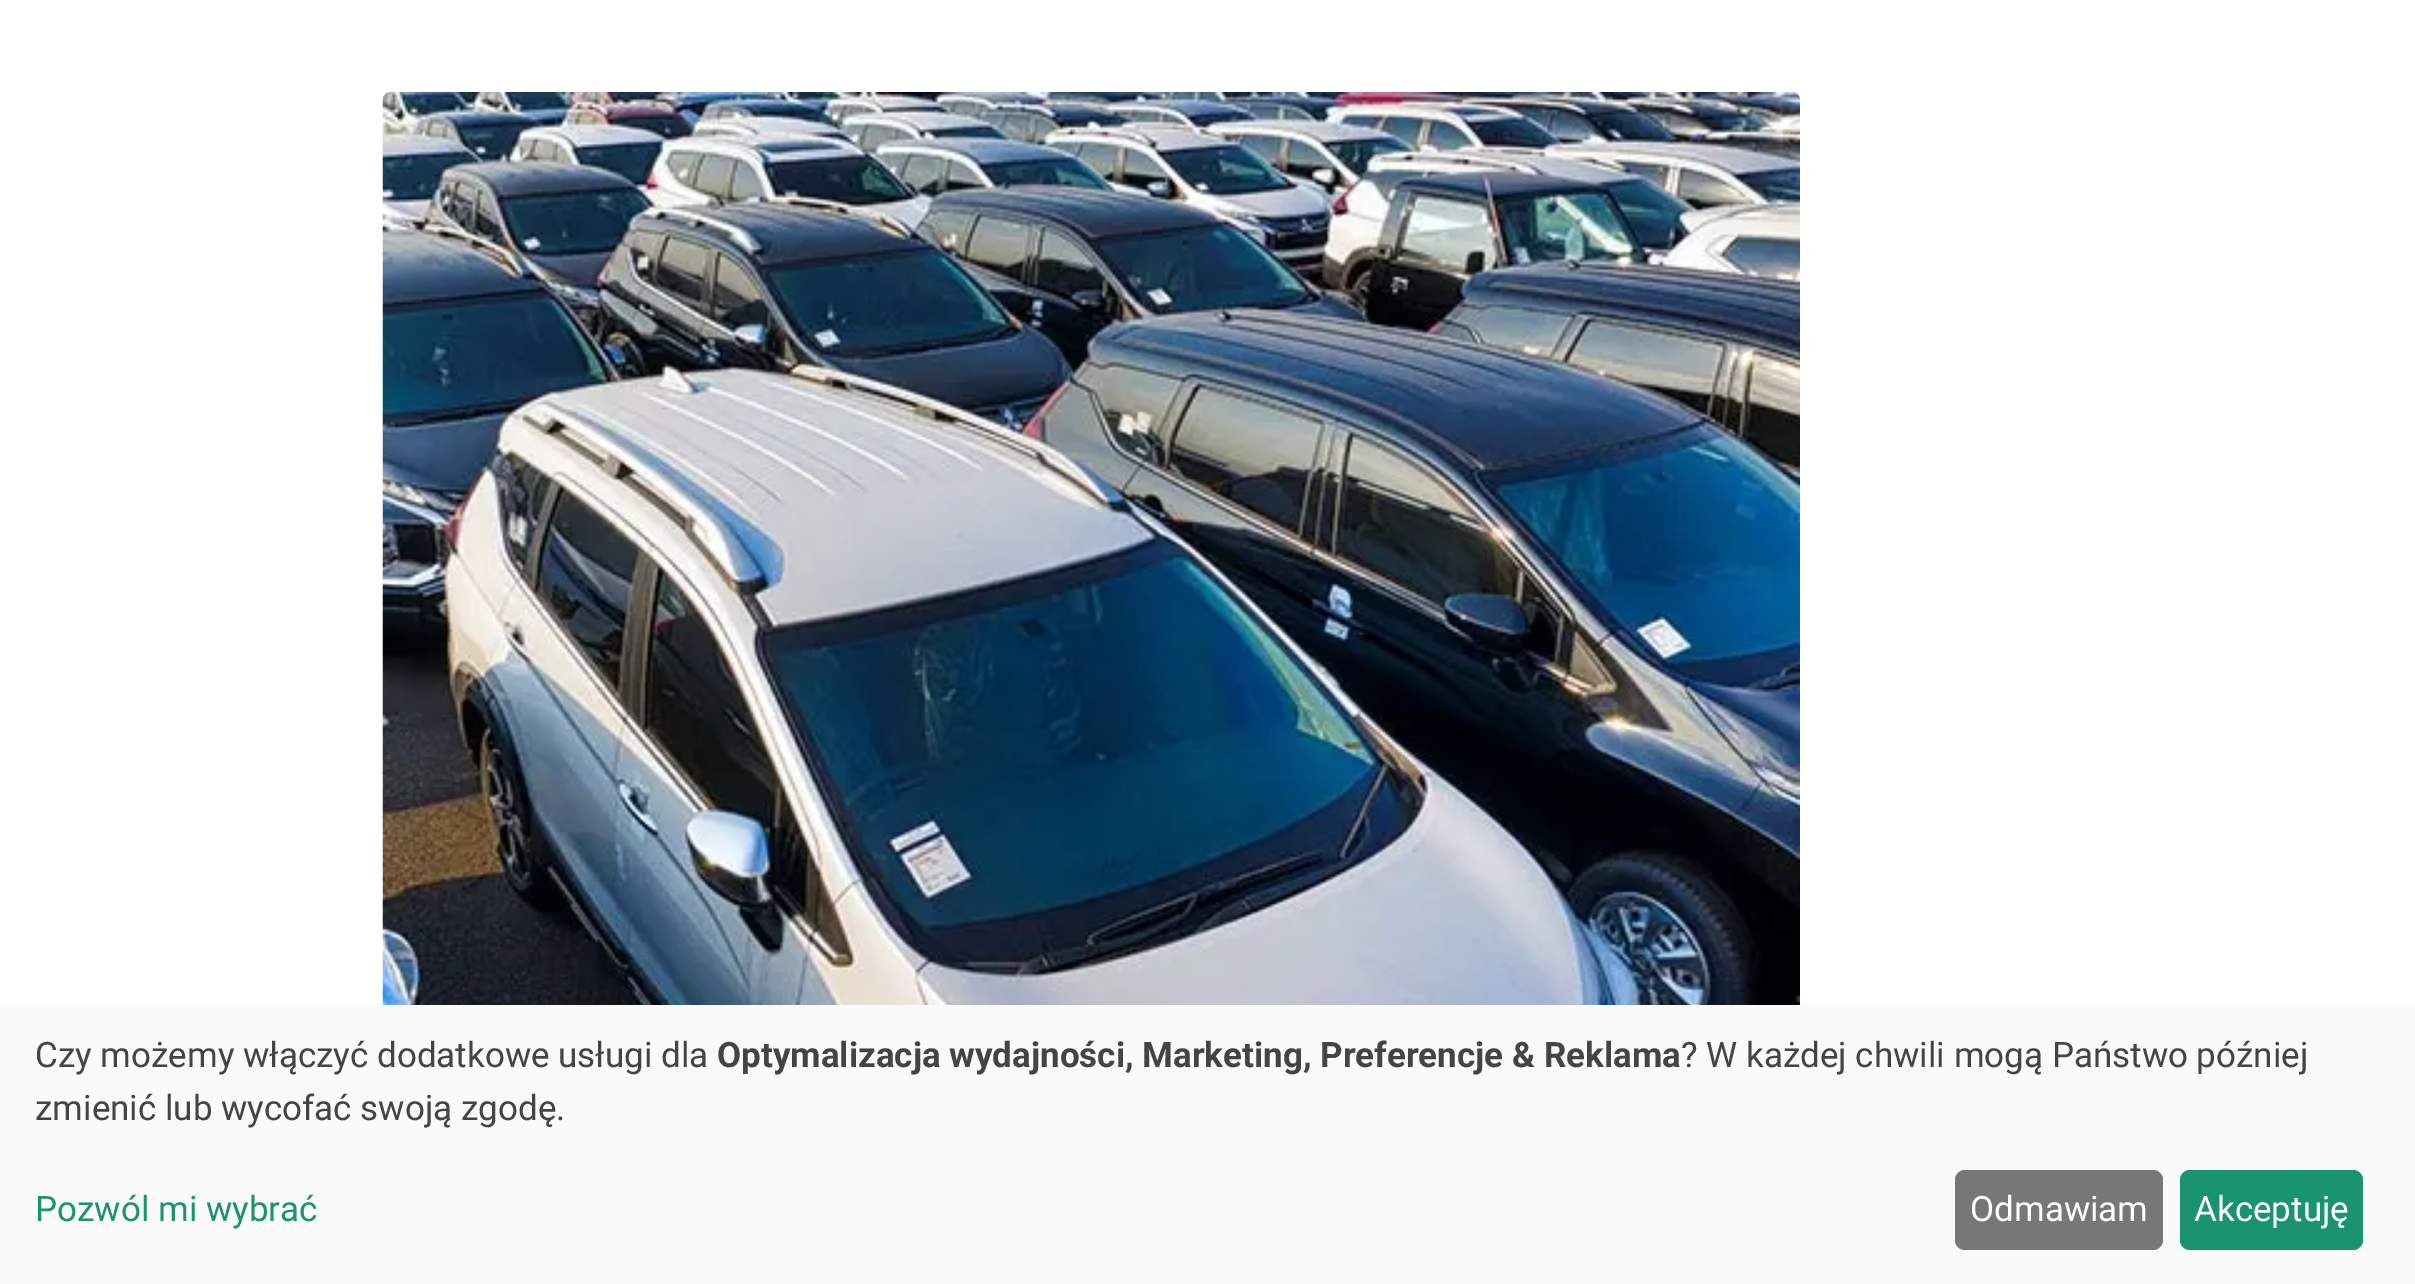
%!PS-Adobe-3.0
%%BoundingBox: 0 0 2415 1284
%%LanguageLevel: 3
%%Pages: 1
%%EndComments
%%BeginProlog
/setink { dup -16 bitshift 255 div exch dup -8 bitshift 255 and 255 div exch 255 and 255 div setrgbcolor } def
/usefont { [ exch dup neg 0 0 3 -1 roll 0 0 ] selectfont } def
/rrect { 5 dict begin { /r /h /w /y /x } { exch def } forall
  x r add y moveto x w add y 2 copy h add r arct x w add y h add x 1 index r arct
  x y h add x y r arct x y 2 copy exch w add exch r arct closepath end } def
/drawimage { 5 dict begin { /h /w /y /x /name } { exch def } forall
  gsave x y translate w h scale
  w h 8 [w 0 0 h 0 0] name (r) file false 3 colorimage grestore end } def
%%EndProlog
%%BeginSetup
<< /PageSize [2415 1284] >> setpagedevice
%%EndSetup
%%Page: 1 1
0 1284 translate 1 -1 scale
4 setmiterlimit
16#FFFFFF setink
0 0 2415 1284 rectfill
(img1.raw) 382 92 1418 913 drawimage
16#FAFAFA setink
0 1005 2415 279 rectfill
/Roboto-Regular 35 usefont
16#444444 setink
35 1067 moveto (Czy możemy włączyć dodatkowe usługi dla) show
/Roboto-Bold 35 usefont
717 1067 moveto (Optymalizacja wydajności, Marketing, Preferencje & Reklama) show
/Roboto-Regular 35 usefont
1681 1067 moveto (? W każdej chwili mogą Państwo później) show
35 1120 moveto (zmienić lub wycofać swoją zgodę.) show
16#1A936F setink
35 1221 moveto (Pozwól mi wybrać) show
16#777777 setink
1955 1170 208 80 10 rrect fill
16#FFFFFF setink
1970 1221 moveto (Odmawiam) show
16#1A936F setink
2180 1170 183 80 10 rrect fill
16#FFFFFF setink
2194 1221 moveto (Akceptuję) show
showpage
%%EOF
